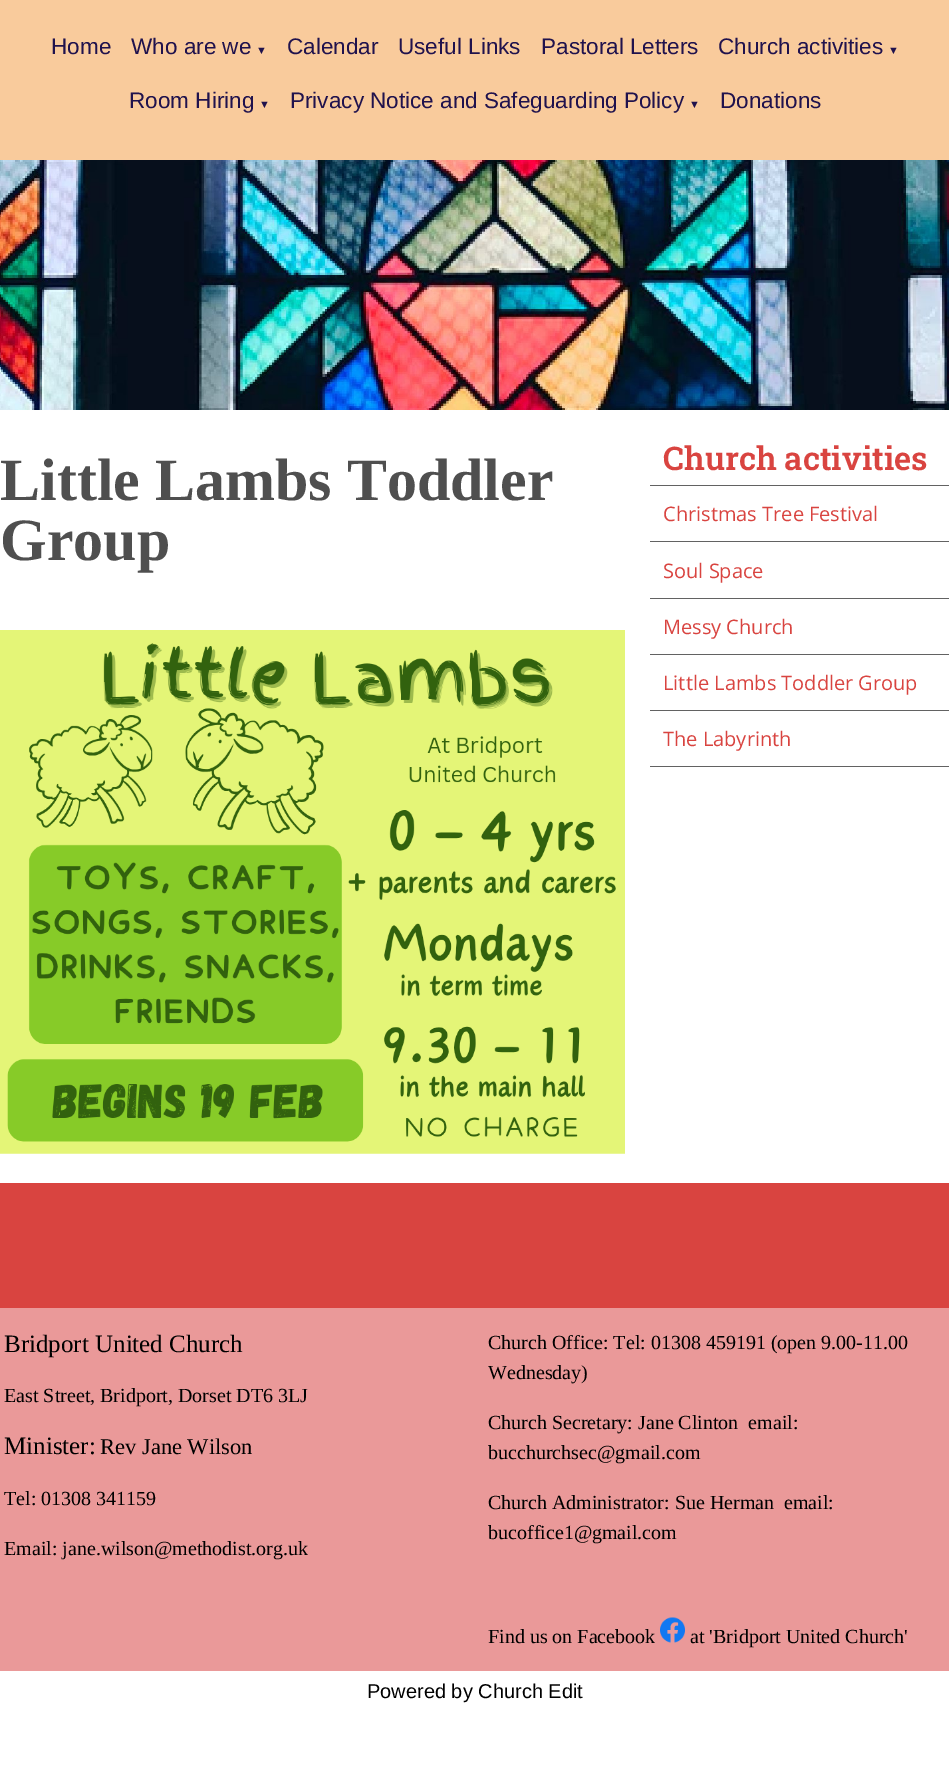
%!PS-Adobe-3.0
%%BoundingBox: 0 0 949 1769
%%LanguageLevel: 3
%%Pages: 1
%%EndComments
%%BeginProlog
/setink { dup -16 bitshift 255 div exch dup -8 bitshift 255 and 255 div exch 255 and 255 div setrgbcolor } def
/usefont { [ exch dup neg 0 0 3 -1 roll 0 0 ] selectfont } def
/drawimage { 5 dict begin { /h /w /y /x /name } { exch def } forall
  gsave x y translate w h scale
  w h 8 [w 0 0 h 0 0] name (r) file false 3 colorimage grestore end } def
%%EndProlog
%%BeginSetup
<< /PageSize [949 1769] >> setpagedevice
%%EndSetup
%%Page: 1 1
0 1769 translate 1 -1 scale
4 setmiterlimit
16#FFFFFF setink
0 0 949 1769 rectfill
16#F9CB9C setink
0 0 949 160 rectfill
/LiberationSans-Regular 22.5 usefont
16#20124D setink
51 54 moveto (Home) show
131 54 moveto (Who are we) show
/LiberationSans-Regular 11 usefont
256 54 moveto (▼) show
/LiberationSans-Regular 22.5 usefont
[
    [(Calendar) 287 54]
    [(Useful Links) 398 54]
    [(Pastoral Letters) 541 54]
    [(Church activities) 718 54]
] { aload pop moveto show } forall
/LiberationSans-Regular 11 usefont
888 54 moveto (▼) show
/LiberationSans-Regular 22.5 usefont
129 108 moveto (Room Hiring) show
/LiberationSans-Regular 11 usefont
259 108 moveto (▼) show
/LiberationSans-Regular 22.5 usefont
290 108 moveto (Privacy Notice and Safeguarding Policy) show
/LiberationSans-Regular 11 usefont
689 108 moveto (▼) show
/LiberationSans-Regular 22.5 usefont
720 108 moveto (Donations) show
(img1.raw) 0 160 949 250 drawimage
/LiberationSerif-Bold 60 usefont
16#4F4F4F setink
0 500 moveto (Little Lambs Toddler) show
0 560 moveto (Group) show
(img2.raw) 0 630 625 524 drawimage
16#626262 setink
650 485 299 1 rectfill
/RobotoSlab-SemiBold 32.5 usefont
16#D94440 setink
663 470 moveto (Church activities) show
16#626262 setink
650 541 299 1 rectfill
/OpenSans-Regular 20 usefont
16#D94440 setink
663 521 moveto (Christmas Tree Festival) show
16#626262 setink
650 598 299 1 rectfill
16#D94440 setink
663 578 moveto (Soul Space) show
16#626262 setink
650 654 299 1 rectfill
16#D94440 setink
663 634 moveto (Messy Church) show
16#626262 setink
650 710 299 1 rectfill
16#D94440 setink
663 690 moveto (Little Lambs Toddler Group) show
16#626262 setink
650 766 299 1 rectfill
16#D94440 setink
663 746 moveto (The Labyrinth) show
0 1183 949 125 rectfill
16#EA9999 setink
0 1308 949 363 rectfill
/LiberationSerif-Regular 25 usefont
16#000000 setink
4 1352 moveto (Bridport United Church) show
/LiberationSerif-Regular 20 usefont
4 1402 moveto (East Street, Bridport, Dorset DT6 3LJ) show
/LiberationSerif-Regular 25 usefont
4 1454 moveto (Minister:) show
/LiberationSerif-Regular 22.5 usefont
100 1454 moveto (Rev Jane Wilson) show
/LiberationSerif-Regular 20 usefont
[
    [(Tel: 01308 341159) 4 1505]
    [(Email: jane.wilson@methodist.org.uk) 4 1555]
    [(Church Office: Tel: 01308 459191 \(open 9.00-11.00) 488 1349]
    [(Wednesday\)) 488 1379]
    [(Church Secretary: Jane Clinton  email:) 488 1429]
    [(bucchurchsec@gmail.com) 488 1459]
    [(Church Administrator: Sue Herman  email:) 488 1509]
    [(bucoffice1@gmail.com) 488 1539]
    [(Find us on Facebook) 488 1643]
] { aload pop moveto show } forall
(img3.raw) 660 1617 25 26 drawimage
690 1643 moveto (at 'Bridport United Church') show
/LiberationSans-Regular 20 usefont
367 1698 moveto (Powered by Church Edit) show
showpage
%%EOF
